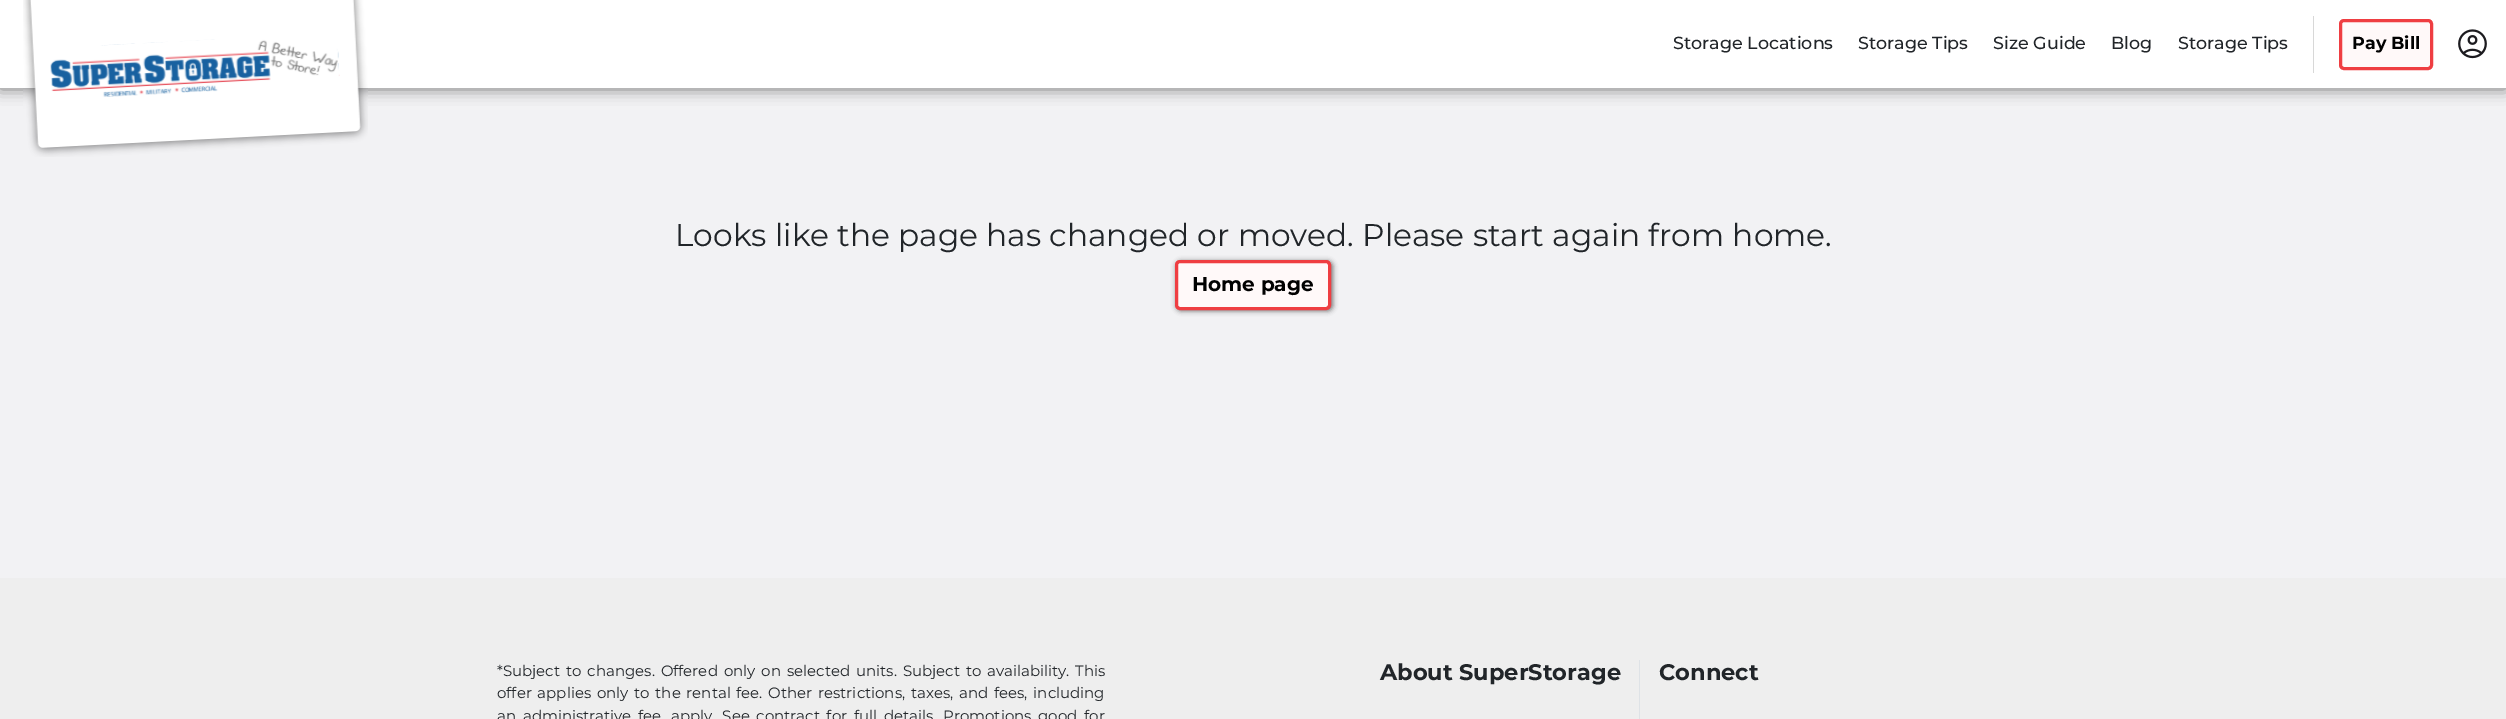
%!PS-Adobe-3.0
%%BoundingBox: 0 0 2506 719
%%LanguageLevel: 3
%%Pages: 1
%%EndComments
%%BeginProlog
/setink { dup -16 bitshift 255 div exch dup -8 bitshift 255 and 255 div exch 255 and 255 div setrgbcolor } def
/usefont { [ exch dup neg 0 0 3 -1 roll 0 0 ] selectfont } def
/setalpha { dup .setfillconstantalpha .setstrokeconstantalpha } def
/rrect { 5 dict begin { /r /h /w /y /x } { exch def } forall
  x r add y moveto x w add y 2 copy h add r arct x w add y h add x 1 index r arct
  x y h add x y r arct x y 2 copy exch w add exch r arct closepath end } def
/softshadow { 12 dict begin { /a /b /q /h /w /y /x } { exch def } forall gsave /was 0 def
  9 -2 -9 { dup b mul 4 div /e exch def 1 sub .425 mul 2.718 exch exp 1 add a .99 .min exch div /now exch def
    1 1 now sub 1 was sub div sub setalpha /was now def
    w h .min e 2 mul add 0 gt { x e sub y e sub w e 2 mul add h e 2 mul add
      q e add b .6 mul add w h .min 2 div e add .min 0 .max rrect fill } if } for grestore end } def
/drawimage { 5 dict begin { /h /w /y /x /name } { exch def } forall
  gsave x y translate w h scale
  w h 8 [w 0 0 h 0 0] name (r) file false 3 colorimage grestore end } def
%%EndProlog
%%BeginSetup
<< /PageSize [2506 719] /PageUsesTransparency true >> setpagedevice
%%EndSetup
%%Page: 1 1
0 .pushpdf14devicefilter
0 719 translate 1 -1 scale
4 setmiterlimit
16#F2F2F4 setink
0 0 2506 719 rectfill
16#000000 setink
0 1 2506 88 0 7.5 0.5 softshadow
16#FFFFFF setink
0 0 2506 88 rectfill
(img1.raw) 23 0 345 157 drawimage
/Montserrat-Medium 17.5 usefont
16#212529 setink
[
    [(Storage Locations) 1673 49]
    [(Storage Tips) 1858 49]
    [(Size Guide) 1993 49]
    [(Blog) 2111 49]
    [(Storage Tips) 2178 49]
] { aload pop moveto show } forall
16#D8D8D8 setink
2313 16 1 57 rectfill
16#FFF9F9 setink
2340.5 20.5 91 48 3.5 rrect gsave fill grestore
16#EF3E42 setink
3 setlinewidth
stroke
/Montserrat-Bold 17.5 usefont
16#010101 setink
2352 49 moveto (Pay Bill) show
(img2.raw) 2458 29 29 30 drawimage
/Montserrat-Regular 31.25 usefont
16#212529 setink
675 246 moveto (Looks like the page has changed or moved. Please start again from home.) show
16#000000 setink
1176 261 157 50 5 2.5 0.5 softshadow
16#FFF9F9 setink
1176.5 261.5 153 47 3.5 rrect gsave fill grestore
16#EF3E42 setink
stroke
/Montserrat-Bold 20 usefont
16#010101 setink
1192 291 moveto (Home page) show
16#EEEEEE setink
0 578 2506 141 rectfill
/Montserrat-Regular 15 usefont
16#212529 setink
497 676 moveto 2 0 32 (*Subject to changes. Offered only on selected units. Subject to availability. This) widthshow
497 698 moveto 1.8 0 32 (offer applies only to the rental fee. Other restrictions, taxes, and fees, including) widthshow
497 721 moveto 2.75 0 32 (an administrative fee, apply. See contract for full details. Promotions good for) widthshow
16#DEE2E6 setink
1639 660 1 59 rectfill
/Montserrat-Bold 22.5 usefont
16#212529 setink
1380 680 moveto (About SuperStorage) show
1659 680 moveto (Connect) show
.poppdf14devicefilter showpage
%%EOF
